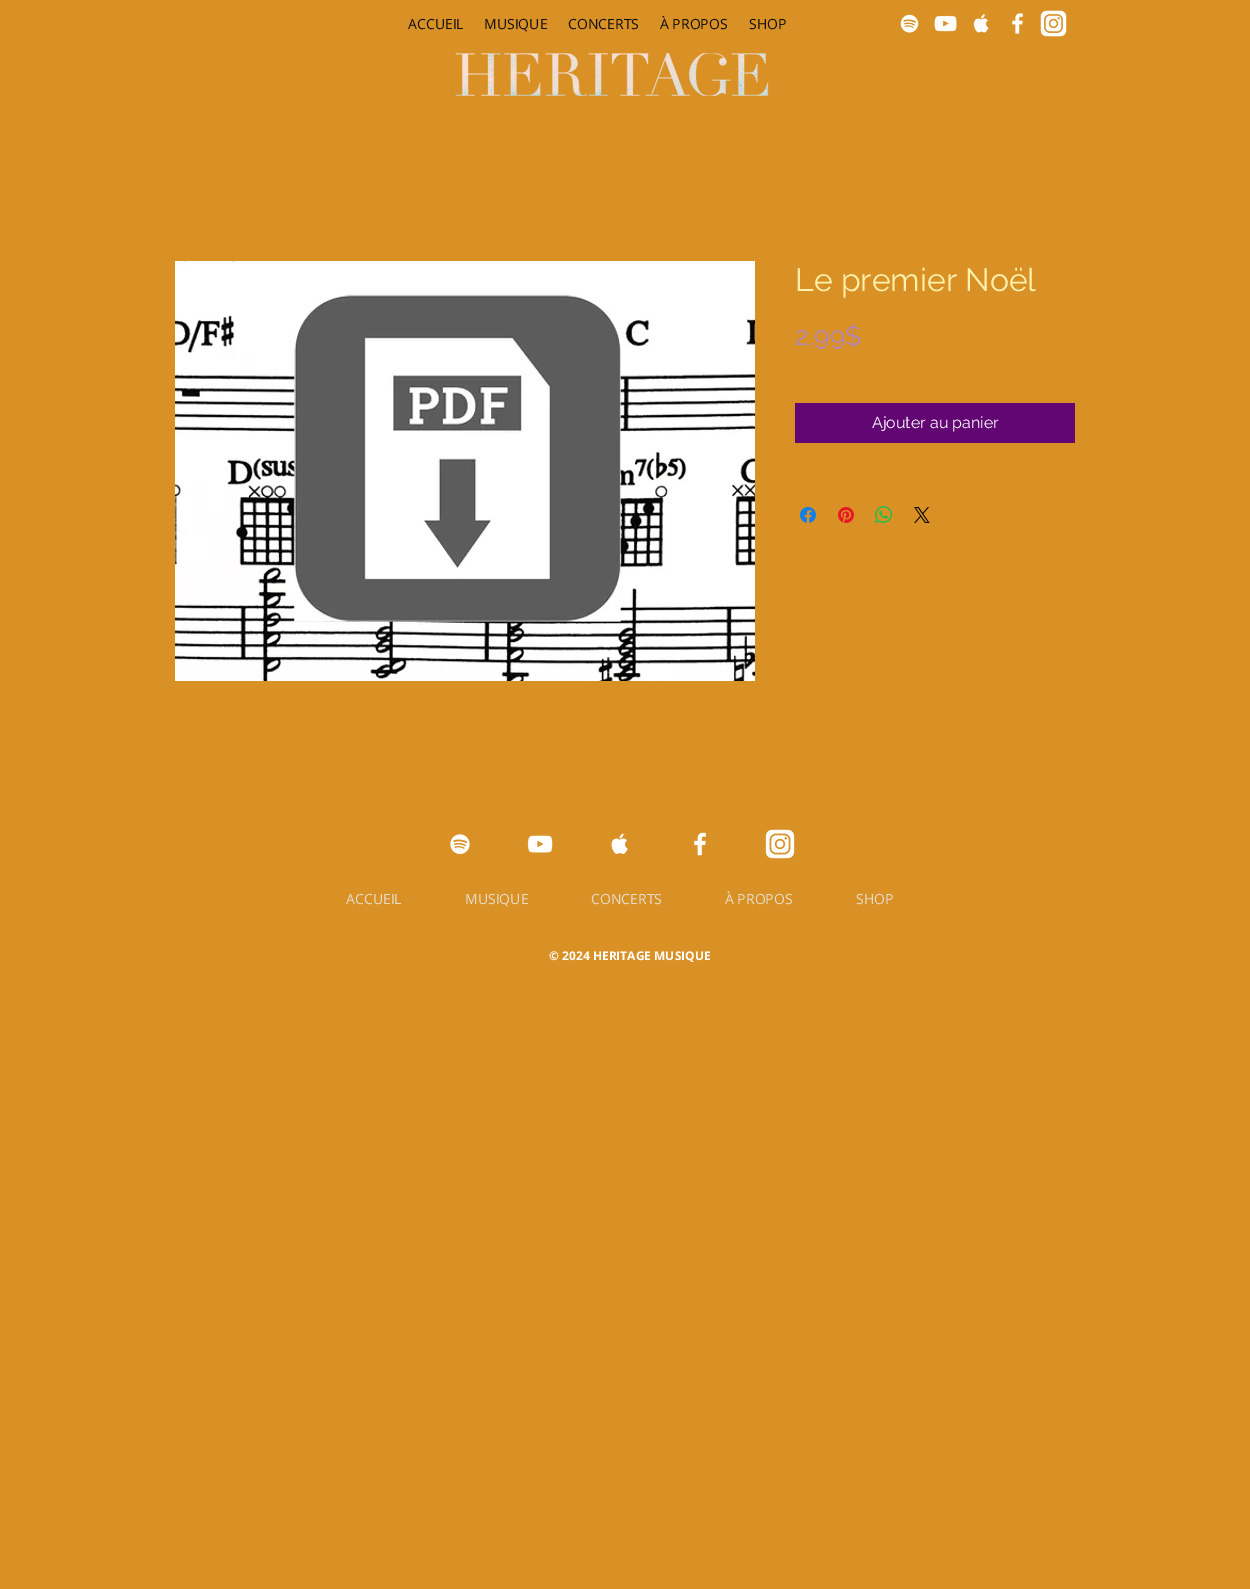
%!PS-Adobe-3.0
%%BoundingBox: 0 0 1250 1589
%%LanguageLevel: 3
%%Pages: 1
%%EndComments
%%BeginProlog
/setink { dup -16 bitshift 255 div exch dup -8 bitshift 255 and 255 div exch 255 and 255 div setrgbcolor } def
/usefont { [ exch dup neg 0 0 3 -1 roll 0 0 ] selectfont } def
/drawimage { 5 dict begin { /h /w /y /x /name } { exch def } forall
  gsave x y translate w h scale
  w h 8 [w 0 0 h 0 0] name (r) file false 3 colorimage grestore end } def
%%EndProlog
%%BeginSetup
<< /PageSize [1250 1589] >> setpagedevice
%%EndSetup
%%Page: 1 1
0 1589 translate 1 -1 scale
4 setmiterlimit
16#D99025 setink
0 0 1250 1589 rectfill
/OpenSans-Regular 14 usefont
16#0F0F0F setink
[
    [(ACCUEIL) 408 29]
    [(MUSIQUE) 484 29]
    [(CONCERTS) 568 29]
    [(À PROPOS) 660 29]
    [(SHOP) 749 29]
] { aload pop moveto show } forall
(img1.raw) 900 14 19 19 drawimage
(img2.raw) 934 15 23 17 drawimage
(img3.raw) 973 14 16 19 drawimage
(img4.raw) 1012 13 11 21 drawimage
(img5.raw) 1040 10 27 27 drawimage
(img6.raw) 455 53 314 43 drawimage
(img7.raw) 175 261 580 420 drawimage
/Raleway-Regular 32 usefont
16#FEF2AE setink
795 291 moveto (Le premier Noël) show
/Raleway-Regular 26 usefont
16#B183BA setink
795 345 moveto (2,99$) show
16#620674 setink
795 403 280 40 rectfill
/Raleway-Regular 16 usefont
16#FFFFFF setink
872 428 moveto (Ajouter au panier) show
(img8.raw) 800 507 16 16 drawimage
(img9.raw) 838 507 16 16 drawimage
(img10.raw) 875 506 17 17 drawimage
(img11.raw) 914 507 16 16 drawimage
(img12.raw) 450 834 20 21 drawimage
(img13.raw) 527 835 26 18 drawimage
(img14.raw) 611 833 17 22 drawimage
(img15.raw) 694 832 13 24 drawimage
(img16.raw) 765 829 30 30 drawimage
/OpenSans-Regular 14 usefont
16#E6DECA setink
[
    [(ACCUEIL) 346 904]
    [(MUSIQUE) 465 904]
    [(CONCERTS) 591 904]
    [(À PROPOS) 725 904]
    [(SHOP) 856 904]
] { aload pop moveto show } forall
/OpenSans-Bold 12 usefont
16#FFFFFF setink
549 960 moveto (© 2024 HERITAGE MUSIQUE) show
showpage
%%EOF
